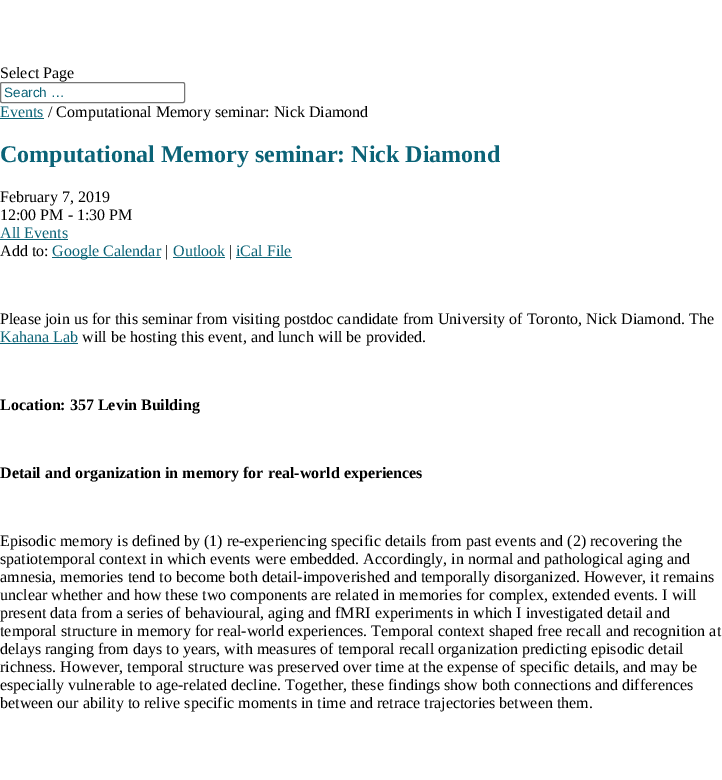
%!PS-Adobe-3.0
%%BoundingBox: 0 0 722 780
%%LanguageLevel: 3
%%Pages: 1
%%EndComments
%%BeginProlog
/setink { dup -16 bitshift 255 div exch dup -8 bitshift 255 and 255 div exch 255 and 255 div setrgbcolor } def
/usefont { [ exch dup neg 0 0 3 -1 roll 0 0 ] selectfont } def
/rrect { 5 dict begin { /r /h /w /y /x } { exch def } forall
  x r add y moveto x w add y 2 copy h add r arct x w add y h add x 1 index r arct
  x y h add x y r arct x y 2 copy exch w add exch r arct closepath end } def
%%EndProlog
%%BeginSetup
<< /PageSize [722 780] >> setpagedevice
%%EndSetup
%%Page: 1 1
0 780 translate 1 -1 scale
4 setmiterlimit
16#FFFFFF setink
0 0 722 780 rectfill
/LiberationSerif-Regular 16 usefont
16#000000 setink
0 78 moveto (Select Page) show
16#767676 setink
0.5 82.5 184 20 1.5 rrect stroke
/LiberationSans-Regular 13.5 usefont
16#0B6377 setink
4 97 moveto (Search …) show
/LiberationSerif-Regular 16 usefont
0 117 moveto (Events) show
0 118 44 1 rectfill
16#000000 setink
48 117 moveto (/ Computational Memory seminar: Nick Diamond) show
/LiberationSerif-Bold 24 usefont
16#0B6377 setink
0 162 moveto (Computational Memory seminar: Nick Diamond) show
/LiberationSerif-Regular 16 usefont
16#000000 setink
0 202 moveto (February 7, 2019) show
0 220 moveto (12:00 PM - 1:30 PM) show
16#0B6377 setink
0 238 moveto (All Events) show
0 239 68 1 rectfill
16#000000 setink
0 256 moveto (Add to:) show
16#0B6377 setink
52 257 109 1 rectfill
52 256 moveto (Google Calendar) show
16#000000 setink
165 256 moveto (|) show
16#0B6377 setink
173 256 moveto (Outlook) show
173 257 52 1 rectfill
16#000000 setink
229 256 moveto (|) show
16#0B6377 setink
236 256 moveto (iCal File) show
236 257 56 1 rectfill
16#000000 setink
0 324 moveto (Please join us for this seminar from visiting postdoc candidate from University of Toronto, Nick Diamond. The) show
16#0B6377 setink
0 342 moveto (Kahana Lab) show
0 343 78 1 rectfill
16#000000 setink
82 342 moveto (will be hosting this event, and lunch will be provided.) show
/LiberationSerif-Bold 16 usefont
0 410 moveto (Location: 357 Levin Building) show
0 478 moveto (Detail and organization in memory for real-world experiences) show
/LiberationSerif-Regular 16 usefont
[
    [(Episodic memory is defined by \(1\) re-experiencing specific details from past events and \(2\) recovering the) 0 546]
    [(spatiotemporal context in which events were embedded. Accordingly, in normal and pathological aging and) 0 564]
    [(amnesia, memories tend to become both detail-impoverished and temporally disorganized. However, it remains) 0 582]
    [(unclear whether and how these two components are related in memories for complex, extended events. I will) 0 600]
    [(present data from a series of behavioural, aging and fMRI experiments in which I investigated detail and) 0 618]
    [(temporal structure in memory for real-world experiences. Temporal context shaped free recall and recognition at) 0 636]
    [(delays ranging from days to years, with measures of temporal recall organization predicting episodic detail) 0 654]
    [(richness. However, temporal structure was preserved over time at the expense of specific details, and may be) 0 672]
    [(especially vulnerable to age-related decline. Together, these findings show both connections and differences) 0 690]
    [(between our ability to relive specific moments in time and retrace trajectories between them.) 0 708]
] { aload pop moveto show } forall
showpage
%%EOF
